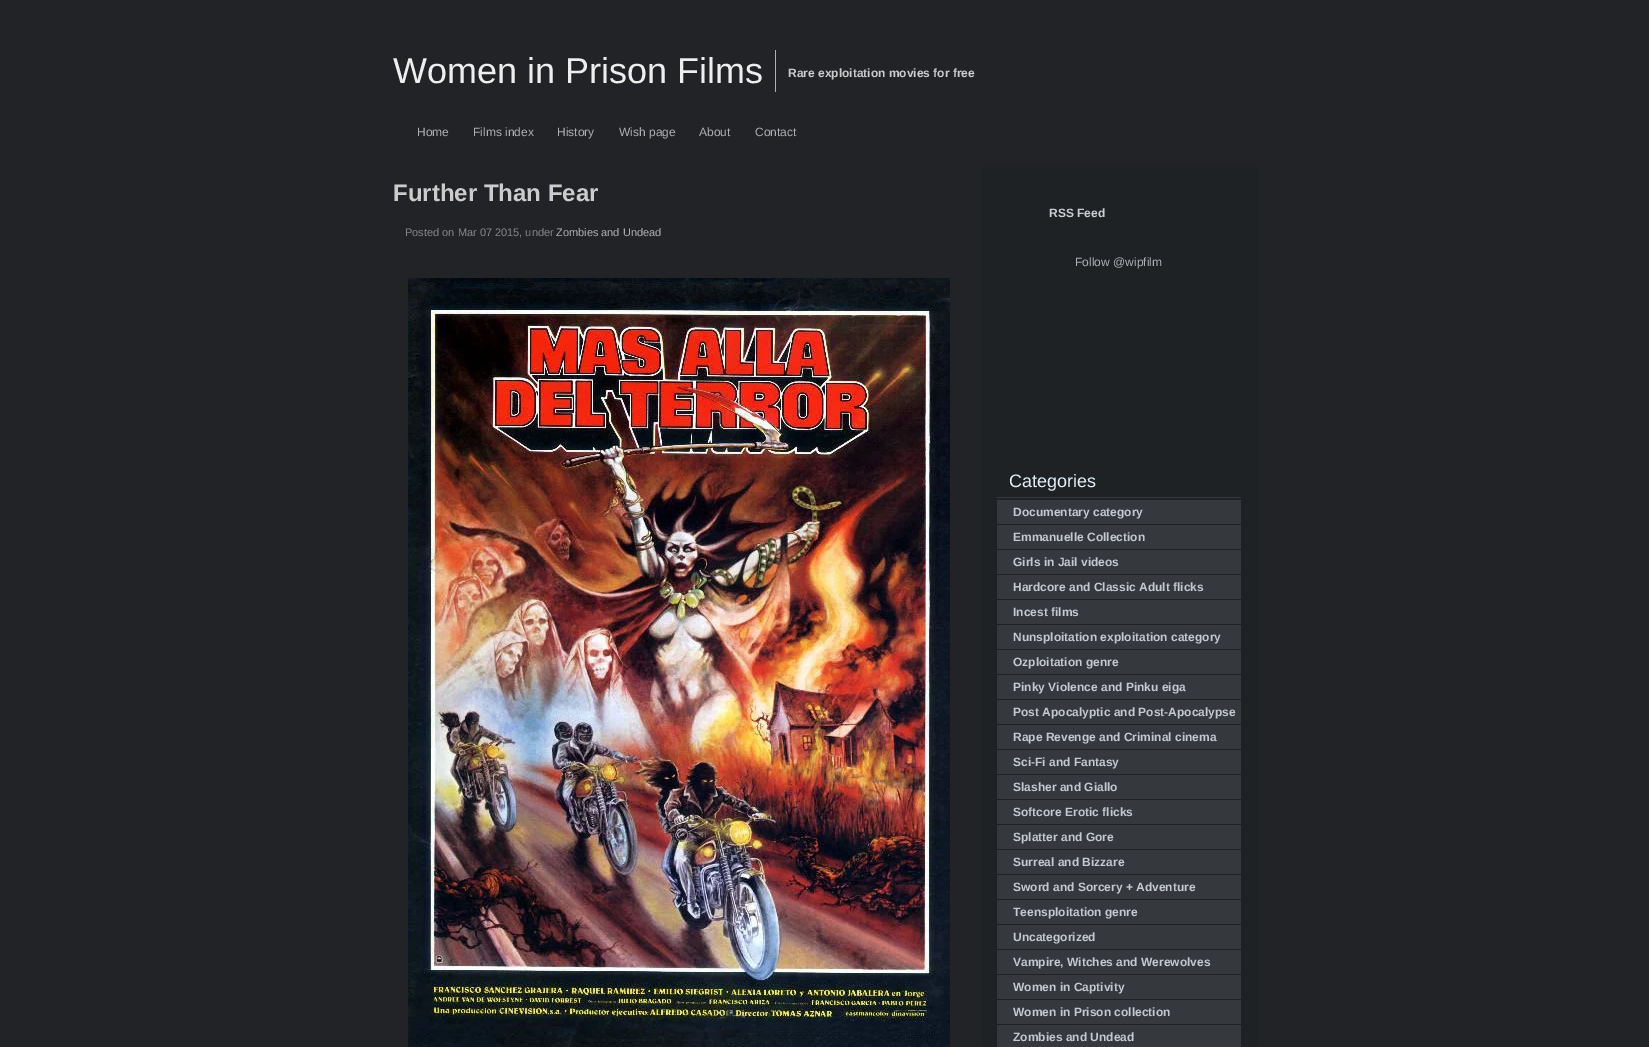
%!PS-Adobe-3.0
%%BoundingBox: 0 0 1649 1047
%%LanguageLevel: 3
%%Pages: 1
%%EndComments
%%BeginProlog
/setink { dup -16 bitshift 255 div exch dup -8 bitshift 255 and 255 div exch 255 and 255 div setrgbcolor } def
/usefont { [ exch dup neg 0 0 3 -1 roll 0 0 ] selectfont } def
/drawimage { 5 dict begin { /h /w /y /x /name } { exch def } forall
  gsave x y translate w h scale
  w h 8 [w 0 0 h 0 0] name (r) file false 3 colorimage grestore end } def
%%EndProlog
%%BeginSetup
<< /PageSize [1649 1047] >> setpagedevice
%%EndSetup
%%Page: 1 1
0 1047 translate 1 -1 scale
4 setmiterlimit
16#222326 setink
0 0 1649 1047 rectfill
16#ADB0B4 setink
775 50 1 42 rectfill
/LiberationSans-Regular 36 usefont
16#EEEEEE setink
393 83 moveto (Women in Prison Films) show
/LiberationSans-Bold 12 usefont
16#CCCCCC setink
788 77 moveto (Rare exploitation movies for free) show
/LiberationSans-Regular 12 usefont
16#ADB0B4 setink
[
    [(Home) 417 136]
    [(Films index) 473 136]
    [(History) 557 136]
    [(Wish page) 619 136]
    [(About) 699 136]
    [(Contact) 755 136]
] { aload pop moveto show } forall
/LiberationSans-Bold 24 usefont
16#CCCCCC setink
393 201 moveto (Further Than Fear) show
/LiberationSans-Regular 11 usefont
16#84878B setink
405 236 moveto (Posted on Mar 07 2015, under) show
16#ADB0B4 setink
556 236 moveto (Zombies and Undead) show
(img1.raw) 408 278 542 769 drawimage
16#1F2225 setink
981 167 276 880 rectfill
/LiberationSans-Bold 12 usefont
16#CACED3 setink
1049 217 moveto (RSS Feed) show
/LiberationSans-Regular 12 usefont
16#ADB0B4 setink
1075 266 moveto (Follow @wipfilm) show
16#35383D setink
997 497 244 1 rectfill
/LiberationSans-Regular 18 usefont
16#E5EEF5 setink
1009 487 moveto (Categories) show
16#35383D setink
997 500 244 24 rectfill
/LiberationSans-Bold 12 usefont
16#C4C8CF setink
1013 516 moveto (Documentary category) show
16#35383D setink
997 525 244 24 rectfill
16#C4C8CF setink
1013 541 moveto (Emmanuelle Collection) show
16#35383D setink
997 550 244 24 rectfill
16#C4C8CF setink
1013 566 moveto (Girls in Jail videos) show
16#35383D setink
997 575 244 24 rectfill
16#C4C8CF setink
1013 591 moveto (Hardcore and Classic Adult flicks) show
16#35383D setink
997 600 244 24 rectfill
16#C4C8CF setink
1013 616 moveto (Incest films) show
16#35383D setink
997 625 244 24 rectfill
16#C4C8CF setink
1013 641 moveto (Nunsploitation exploitation category) show
16#35383D setink
997 650 244 24 rectfill
16#C4C8CF setink
1013 666 moveto (Ozploitation genre) show
16#35383D setink
997 675 244 24 rectfill
16#C4C8CF setink
1013 691 moveto (Pinky Violence and Pinku eiga) show
16#35383D setink
997 700 244 24 rectfill
16#C4C8CF setink
1013 716 moveto (Post Apocalyptic and Post-Apocalypse) show
16#35383D setink
997 725 244 24 rectfill
16#C4C8CF setink
1013 741 moveto (Rape Revenge and Criminal cinema) show
16#35383D setink
997 750 244 24 rectfill
16#C4C8CF setink
1013 766 moveto (Sci-Fi and Fantasy) show
16#35383D setink
997 775 244 24 rectfill
16#C4C8CF setink
1013 791 moveto (Slasher and Giallo) show
16#35383D setink
997 800 244 24 rectfill
16#C4C8CF setink
1013 816 moveto (Softcore Erotic flicks) show
16#35383D setink
997 825 244 24 rectfill
16#C4C8CF setink
1013 841 moveto (Splatter and Gore) show
16#35383D setink
997 850 244 24 rectfill
16#C4C8CF setink
1013 866 moveto (Surreal and Bizzare) show
16#35383D setink
997 875 244 24 rectfill
16#C4C8CF setink
1013 891 moveto (Sword and Sorcery + Adventure) show
16#35383D setink
997 900 244 24 rectfill
16#C4C8CF setink
1013 916 moveto (Teensploitation genre) show
16#35383D setink
997 925 244 24 rectfill
16#C4C8CF setink
1013 941 moveto (Uncategorized) show
16#35383D setink
997 950 244 24 rectfill
16#C4C8CF setink
1013 966 moveto (Vampire, Witches and Werewolves) show
16#35383D setink
997 975 244 24 rectfill
16#C4C8CF setink
1013 991 moveto (Women in Captivity) show
16#35383D setink
997 1000 244 24 rectfill
16#C4C8CF setink
1013 1016 moveto (Women in Prison collection) show
16#35383D setink
997 1025 244 22 rectfill
16#C4C8CF setink
1013 1041 moveto (Zombies and Undead) show
showpage
%%EOF
